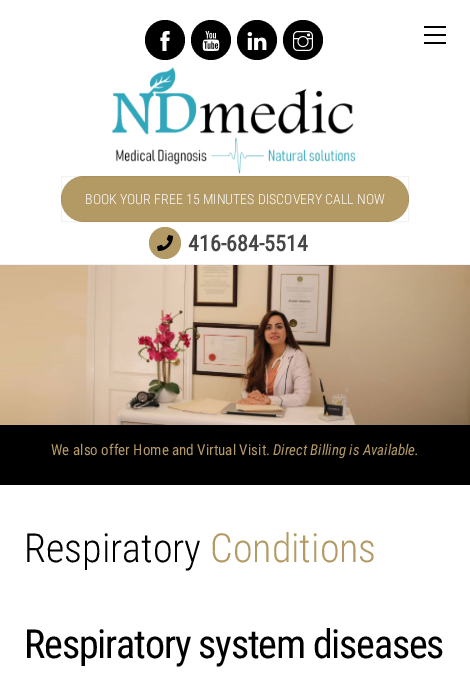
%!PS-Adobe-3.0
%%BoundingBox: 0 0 470 673
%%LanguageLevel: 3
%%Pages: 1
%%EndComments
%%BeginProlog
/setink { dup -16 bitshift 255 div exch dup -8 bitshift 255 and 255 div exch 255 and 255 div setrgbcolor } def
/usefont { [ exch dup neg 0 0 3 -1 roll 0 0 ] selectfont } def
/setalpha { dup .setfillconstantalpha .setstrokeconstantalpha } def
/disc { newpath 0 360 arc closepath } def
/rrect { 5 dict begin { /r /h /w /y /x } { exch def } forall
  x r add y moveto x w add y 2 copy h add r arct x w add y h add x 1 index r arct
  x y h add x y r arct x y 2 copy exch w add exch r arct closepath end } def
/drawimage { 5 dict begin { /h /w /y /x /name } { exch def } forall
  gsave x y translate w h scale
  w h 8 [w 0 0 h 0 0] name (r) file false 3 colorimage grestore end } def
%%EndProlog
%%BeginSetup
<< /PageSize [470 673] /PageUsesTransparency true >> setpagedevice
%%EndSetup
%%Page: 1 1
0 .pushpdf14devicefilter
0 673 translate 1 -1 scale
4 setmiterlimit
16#FFFFFF setink
0 0 470 673 rectfill
[
    [0 264 470 1 16#F2F2F2]
    [424 42 22 2 16#000000]
    [424 26 22 2 16#000000]
    [424 34 22 2 16#000000]
] { aload pop setink rectfill } forall
165 40 20 disc fill
(img1.raw) 160 31 10 20 drawimage
211 40 20 disc fill
(img2.raw) 202 31 18 20 drawimage
257 40 20 disc fill
(img3.raw) 247 32 20 18 drawimage
303 40 20 disc fill
(img4.raw) 293 31 20 20 drawimage
(img5.raw) 111 67 245 107 drawimage
16#B39964 setink
61 176 348 46 23 rrect fill
0.05 setalpha
16#000000 setink
61.5 176.5 347 45 rectstroke
/RobotoCondensed-Light 14 usefont
1 setalpha
16#FFFFFF setink
85 204 moveto (BOOK YOUR FREE 15 MINUTES DISCOVERY CALL NOW) show
16#B39964 setink
165 243 16 disc fill
(img6.raw) 157 235 16 16 drawimage
/RobotoCondensed-Bold 22 usefont
16#464646 setink
188 251 moveto (416-684-5514) show
(img7.raw) 0 265 470 160 drawimage
16#000000 setink
0 425 470 60 rectfill
/RobotoCondensed-Regular 15 usefont
16#B39964 setink
51 455 moveto (We also offer Home and Virtual Visit.) show
/RobotoCondensed-Italic 15 usefont
273 455 moveto (Direct Billing is Available.) show
/RobotoCondensed-Light 40 usefont
16#000000 setink
24 562 moveto (Respiratory) show
16#B39964 setink
210 562 moveto (Conditions) show
/RobotoCondensed-Regular 40 usefont
16#000000 setink
24 658 moveto -1.2 0 (Respiratory system diseases) ashow
.poppdf14devicefilter showpage
%%EOF
